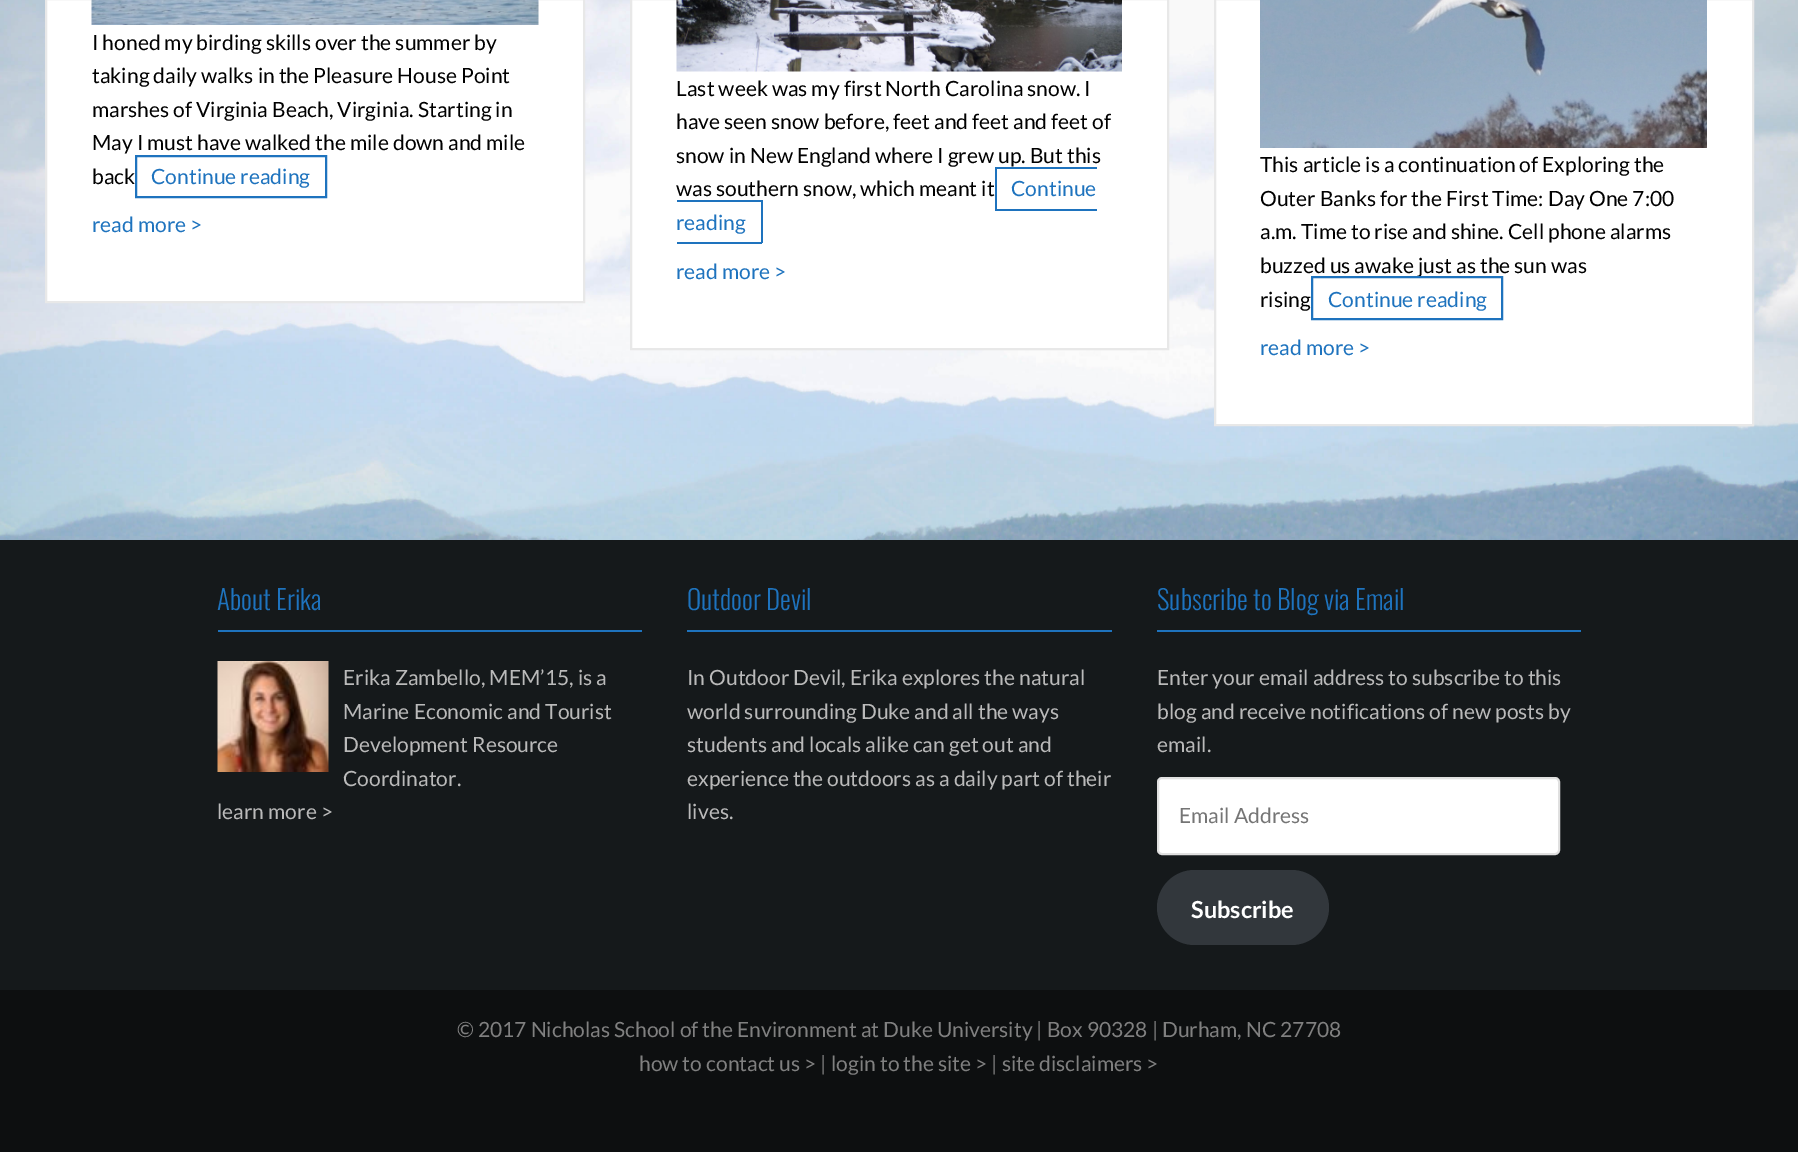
%!PS-Adobe-3.0
%%BoundingBox: 0 0 1798 1152
%%LanguageLevel: 3
%%Pages: 1
%%EndComments
%%BeginProlog
/setink { dup -16 bitshift 255 div exch dup -8 bitshift 255 and 255 div exch 255 and 255 div setrgbcolor } def
/usefont { [ exch dup neg 0 0 3 -1 roll 0 0 ] selectfont } def
/rrect { 5 dict begin { /r /h /w /y /x } { exch def } forall
  x r add y moveto x w add y 2 copy h add r arct x w add y h add x 1 index r arct
  x y h add x y r arct x y 2 copy exch w add exch r arct closepath end } def
/drawimage { 5 dict begin { /h /w /y /x /name } { exch def } forall
  gsave x y translate w h scale
  w h 8 [w 0 0 h 0 0] name (r) file false 3 colorimage grestore end } def
%%EndProlog
%%BeginSetup
<< /PageSize [1798 1152] >> setpagedevice
%%EndSetup
%%Page: 1 1
0 1152 translate 1 -1 scale
4 setmiterlimit
16#FFFFFF setink
0 0 1798 1152 rectfill
(img1.raw) 0 0 1798 540 drawimage
46 -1 moveto 584 -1 lineto 584 302 lineto 46 302 lineto closepath gsave fill grestore
16#E8E8E8 setink
2 setlinewidth
stroke
(img2.raw) 91 0 448 25 drawimage
/Lato-Regular 21 usefont
16#000000 setink
[
    [(I honed my birding skills over the summer by) 92 50]
    [(taking daily walks in the Pleasure House Point) 92 83]
    [(marshes of Virginia Beach, Virginia. Starting in) 92 117]
    [(May I must have walked the mile down and mile) 92 150]
    [(back) 92 184]
] { aload pop moveto show } forall
16#1E73BE setink
136 156 190 41 rectstroke
151 184 moveto (Continue reading) show
92 232 moveto (read more >) show
16#FFFFFF setink
631 -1 moveto 1168 -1 lineto 1168 349 lineto 631 349 lineto closepath gsave fill grestore
16#E8E8E8 setink
stroke
(img3.raw) 676 0 446 72 drawimage
16#000000 setink
[
    [(Last week was my first North Carolina snow. I) 676 96]
    [(have seen snow before, feet and feet and feet of) 676 129]
    [(snow in New England where I grew up. But this) 676 163]
    [(was southern snow, which meant it) 676 196]
] { aload pop moveto show } forall
16#1E73BE setink
1011 196 moveto (Continue) show
[
    [995 167 102 2 16#1E73BE]
    [995 209 102 2 16#1E73BE]
    [995 167 2 43 16#1E73BE]
] { aload pop setink rectfill } forall
676 230 moveto (reading) show
[
    [677 200 85 2 16#1E73BE]
    [761 200 2 43 16#1E73BE]
    [677 242 85 2 16#1E73BE]
] { aload pop setink rectfill } forall
676 279 moveto (read more >) show
16#FFFFFF setink
1215 -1 moveto 1753 -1 lineto 1753 425 lineto 1215 425 lineto closepath gsave fill grestore
16#E8E8E8 setink
stroke
(img4.raw) 1260 0 447 148 drawimage
16#000000 setink
[
    [(This article is a continuation of Exploring the) 1260 172]
    [(Outer Banks for the First Time: Day One 7:00) 1260 206]
    [(a.m. Time to rise and shine. Cell phone alarms) 1260 239]
    [(buzzed us awake just as the sun was) 1260 273]
    [(rising) 1260 307]
] { aload pop moveto show } forall
16#1E73BE setink
1312 277 190 42 rectstroke
1328 307 moveto (Continue reading) show
1260 355 moveto (read more >) show
16#15191B setink
0 540 1798 450 rectfill
16#1E73BE setink
218 630 424 2 rectfill
/Oswald-Light 27 usefont
217 610 moveto (About Erika) show
(img5.raw) 217 661 112 111 drawimage
/Lato-Regular 21 usefont
16#BABABA setink
[
    [(Erika Zambello, MEM’15, is a) 343 685]
    [(Marine Economic and Tourist) 343 719]
    [(Development Resource) 343 752]
    [(Coordinator.) 343 786]
    [(learn more >) 217 819]
] { aload pop moveto show } forall
16#1E73BE setink
687 630 425 2 rectfill
/Oswald-Light 27 usefont
687 610 moveto (Outdoor Devil) show
/Lato-Regular 21 usefont
16#BABABA setink
[
    [(In Outdoor Devil, Erika explores the natural) 687 685]
    [(world surrounding Duke and all the ways) 687 719]
    [(students and locals alike can get out and) 687 752]
    [(experience the outdoors as a daily part of their) 687 786]
    [(lives.) 687 819]
] { aload pop moveto show } forall
16#1E73BE setink
1157 630 424 2 rectfill
/Oswald-Light 27 usefont
1157 610 moveto (Subscribe to Blog via Email) show
/Lato-Regular 21 usefont
16#BABABA setink
[
    [(Enter your email address to subscribe to this) 1157 685]
    [(blog and receive notifications of new posts by) 1157 719]
    [(email.) 1157 752]
] { aload pop moveto show } forall
16#FFFFFF setink
1158 778 401 76 4 rrect gsave fill grestore
16#E0E0E0 setink
stroke
16#757575 setink
1179 823 moveto (Email Address) show
16#32373C setink
1157 870 172 75 37.5 rrect fill
/Lato-Bold 23.5 usefont
16#FFFFFF setink
1191 918 moveto (Subscribe) show
16#0D0F10 setink
0 990 1798 162 rectfill
/Lato-Regular 21 usefont
16#808080 setink
457 1037 moveto (© 2017 Nicholas School of the Environment at Duke University | Box 90328 | Durham, NC 27708) show
639 1071 moveto (how to contact us > | login to the site > | site disclaimers >) show
showpage
%%EOF
